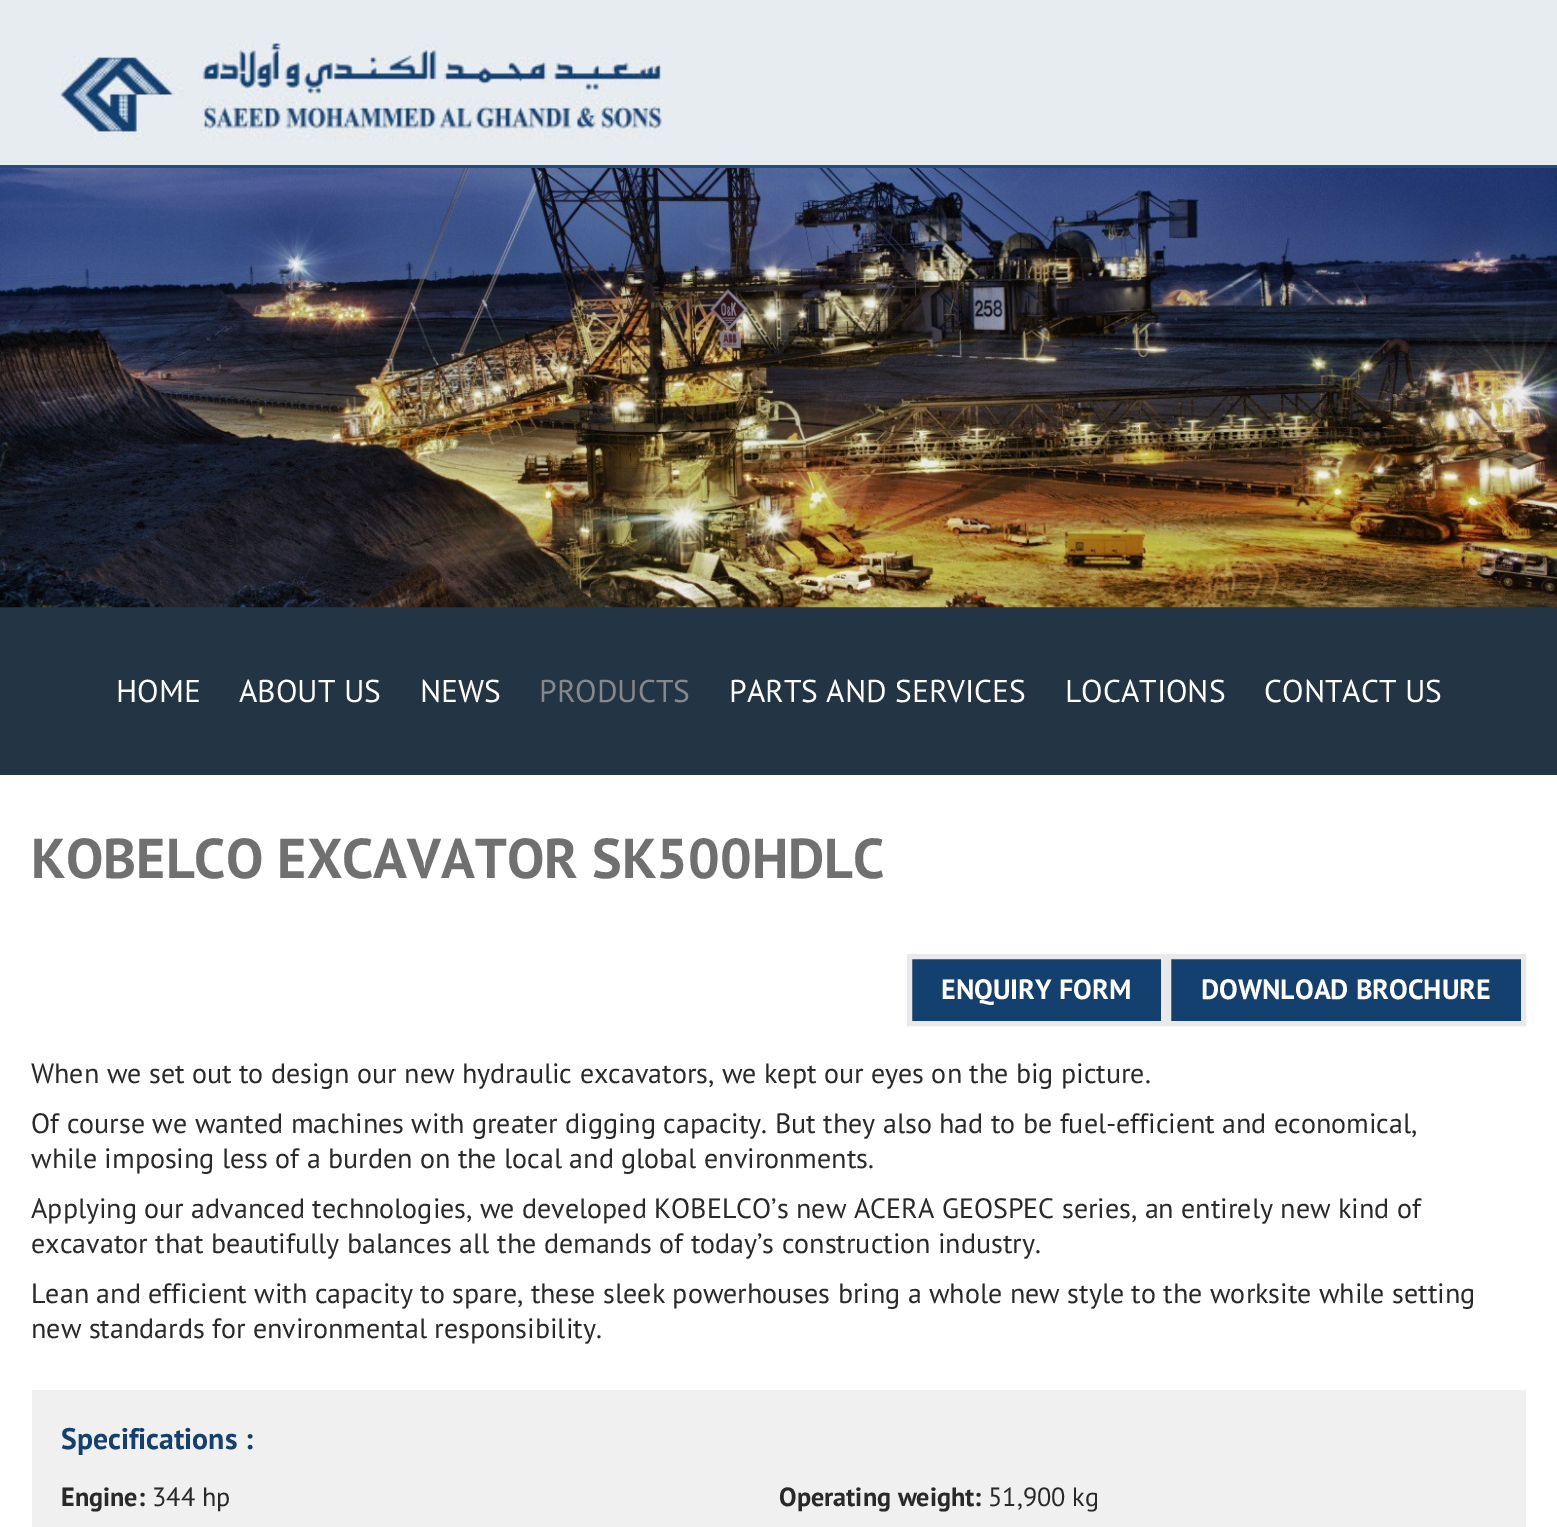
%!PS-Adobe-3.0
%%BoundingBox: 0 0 1557 1527
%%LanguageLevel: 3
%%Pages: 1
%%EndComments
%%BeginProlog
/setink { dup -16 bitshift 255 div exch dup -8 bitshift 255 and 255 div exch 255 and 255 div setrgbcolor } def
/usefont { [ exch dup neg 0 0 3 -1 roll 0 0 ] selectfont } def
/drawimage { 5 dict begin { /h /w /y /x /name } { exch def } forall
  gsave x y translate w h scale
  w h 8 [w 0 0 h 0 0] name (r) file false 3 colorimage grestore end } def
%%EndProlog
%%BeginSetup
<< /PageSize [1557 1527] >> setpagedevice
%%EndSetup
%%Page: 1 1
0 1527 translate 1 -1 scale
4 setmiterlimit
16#FFFFFF setink
0 0 1557 1527 rectfill
16#E7ECF0 setink
0 0 1557 165 rectfill
16#244D7A setink
0 165 1557 3 rectfill
(img1.raw) 59 42 603 98 drawimage
16#233444 setink
0 607 1557 168 rectfill
(img2.raw) 0 168 1557 440 drawimage
/PTSans-Regular 31.5 usefont
16#FFFFFF setink
[
    [(HOME) 116 702]
    [(ABOUT US) 239 702]
    [(NEWS) 420 702]
] { aload pop moveto show } forall
16#87888B setink
539 702 moveto (PRODUCTS) show
16#FFFFFF setink
[
    [(PARTS AND SERVICES) 729 702]
    [(LOCATIONS) 1065 702]
    [(CONTACT US) 1264 702]
] { aload pop moveto show } forall
/PTSans-Bold 56 usefont
16#707070 setink
31 878 moveto (KOBELCO EXCAVATOR SK500HDLC) show
16#144070 setink
909.5 956.5 moveto 1163.5 956.5 lineto 1163.5 1023.5 lineto 909.5 1023.5 lineto closepath gsave fill grestore
16#E9E9E9 setink
5 setlinewidth
stroke
/PTSans-Bold 28 usefont
16#FFFFFF setink
941 999 moveto (ENQUIRY FORM) show
16#144070 setink
1168.5 956.5 moveto 1523.5 956.5 lineto 1523.5 1023.5 lineto 1168.5 1023.5 lineto closepath gsave fill grestore
16#E9E9E9 setink
stroke
16#FFFFFF setink
1201 999 moveto (DOWNLOAD BROCHURE) show
/PTSans-Regular 28 usefont
16#292929 setink
[
    [(When we set out to design our new hydraulic excavators, we kept our eyes on the big picture.) 31 1083]
    [(Of course we wanted machines with greater digging capacity. But they also had to be fuel-efficient and economical,) 31 1133]
    [(while imposing less of a burden on the local and global environments.) 31 1168]
    [(Applying our advanced technologies, we developed KOBELCO’s new ACERA GEOSPEC series, an entirely new kind of) 31 1218]
    [(excavator that beautifully balances all the demands of today’s construction industry.) 31 1253]
    [(Lean and efficient with capacity to spare, these sleek powerhouses bring a whole new style to the worksite while setting) 31 1303]
    [(new standards for environmental responsibility.) 31 1338]
] { aload pop moveto show } forall
16#F0F0F0 setink
32 1390 1494 137 rectfill
/PTSans-Bold 29.75 usefont
16#144070 setink
61 1449 moveto (Specifications :) show
/PTSans-Bold 26.25 usefont
16#292929 setink
61 1506 moveto (Engine:) show
/PTSans-Regular 26.25 usefont
152 1506 moveto (344 hp) show
/PTSans-Bold 26.25 usefont
779 1506 moveto (Operating weight:) show
/PTSans-Regular 26.25 usefont
988 1506 moveto (51,900 kg) show
showpage
%%EOF
